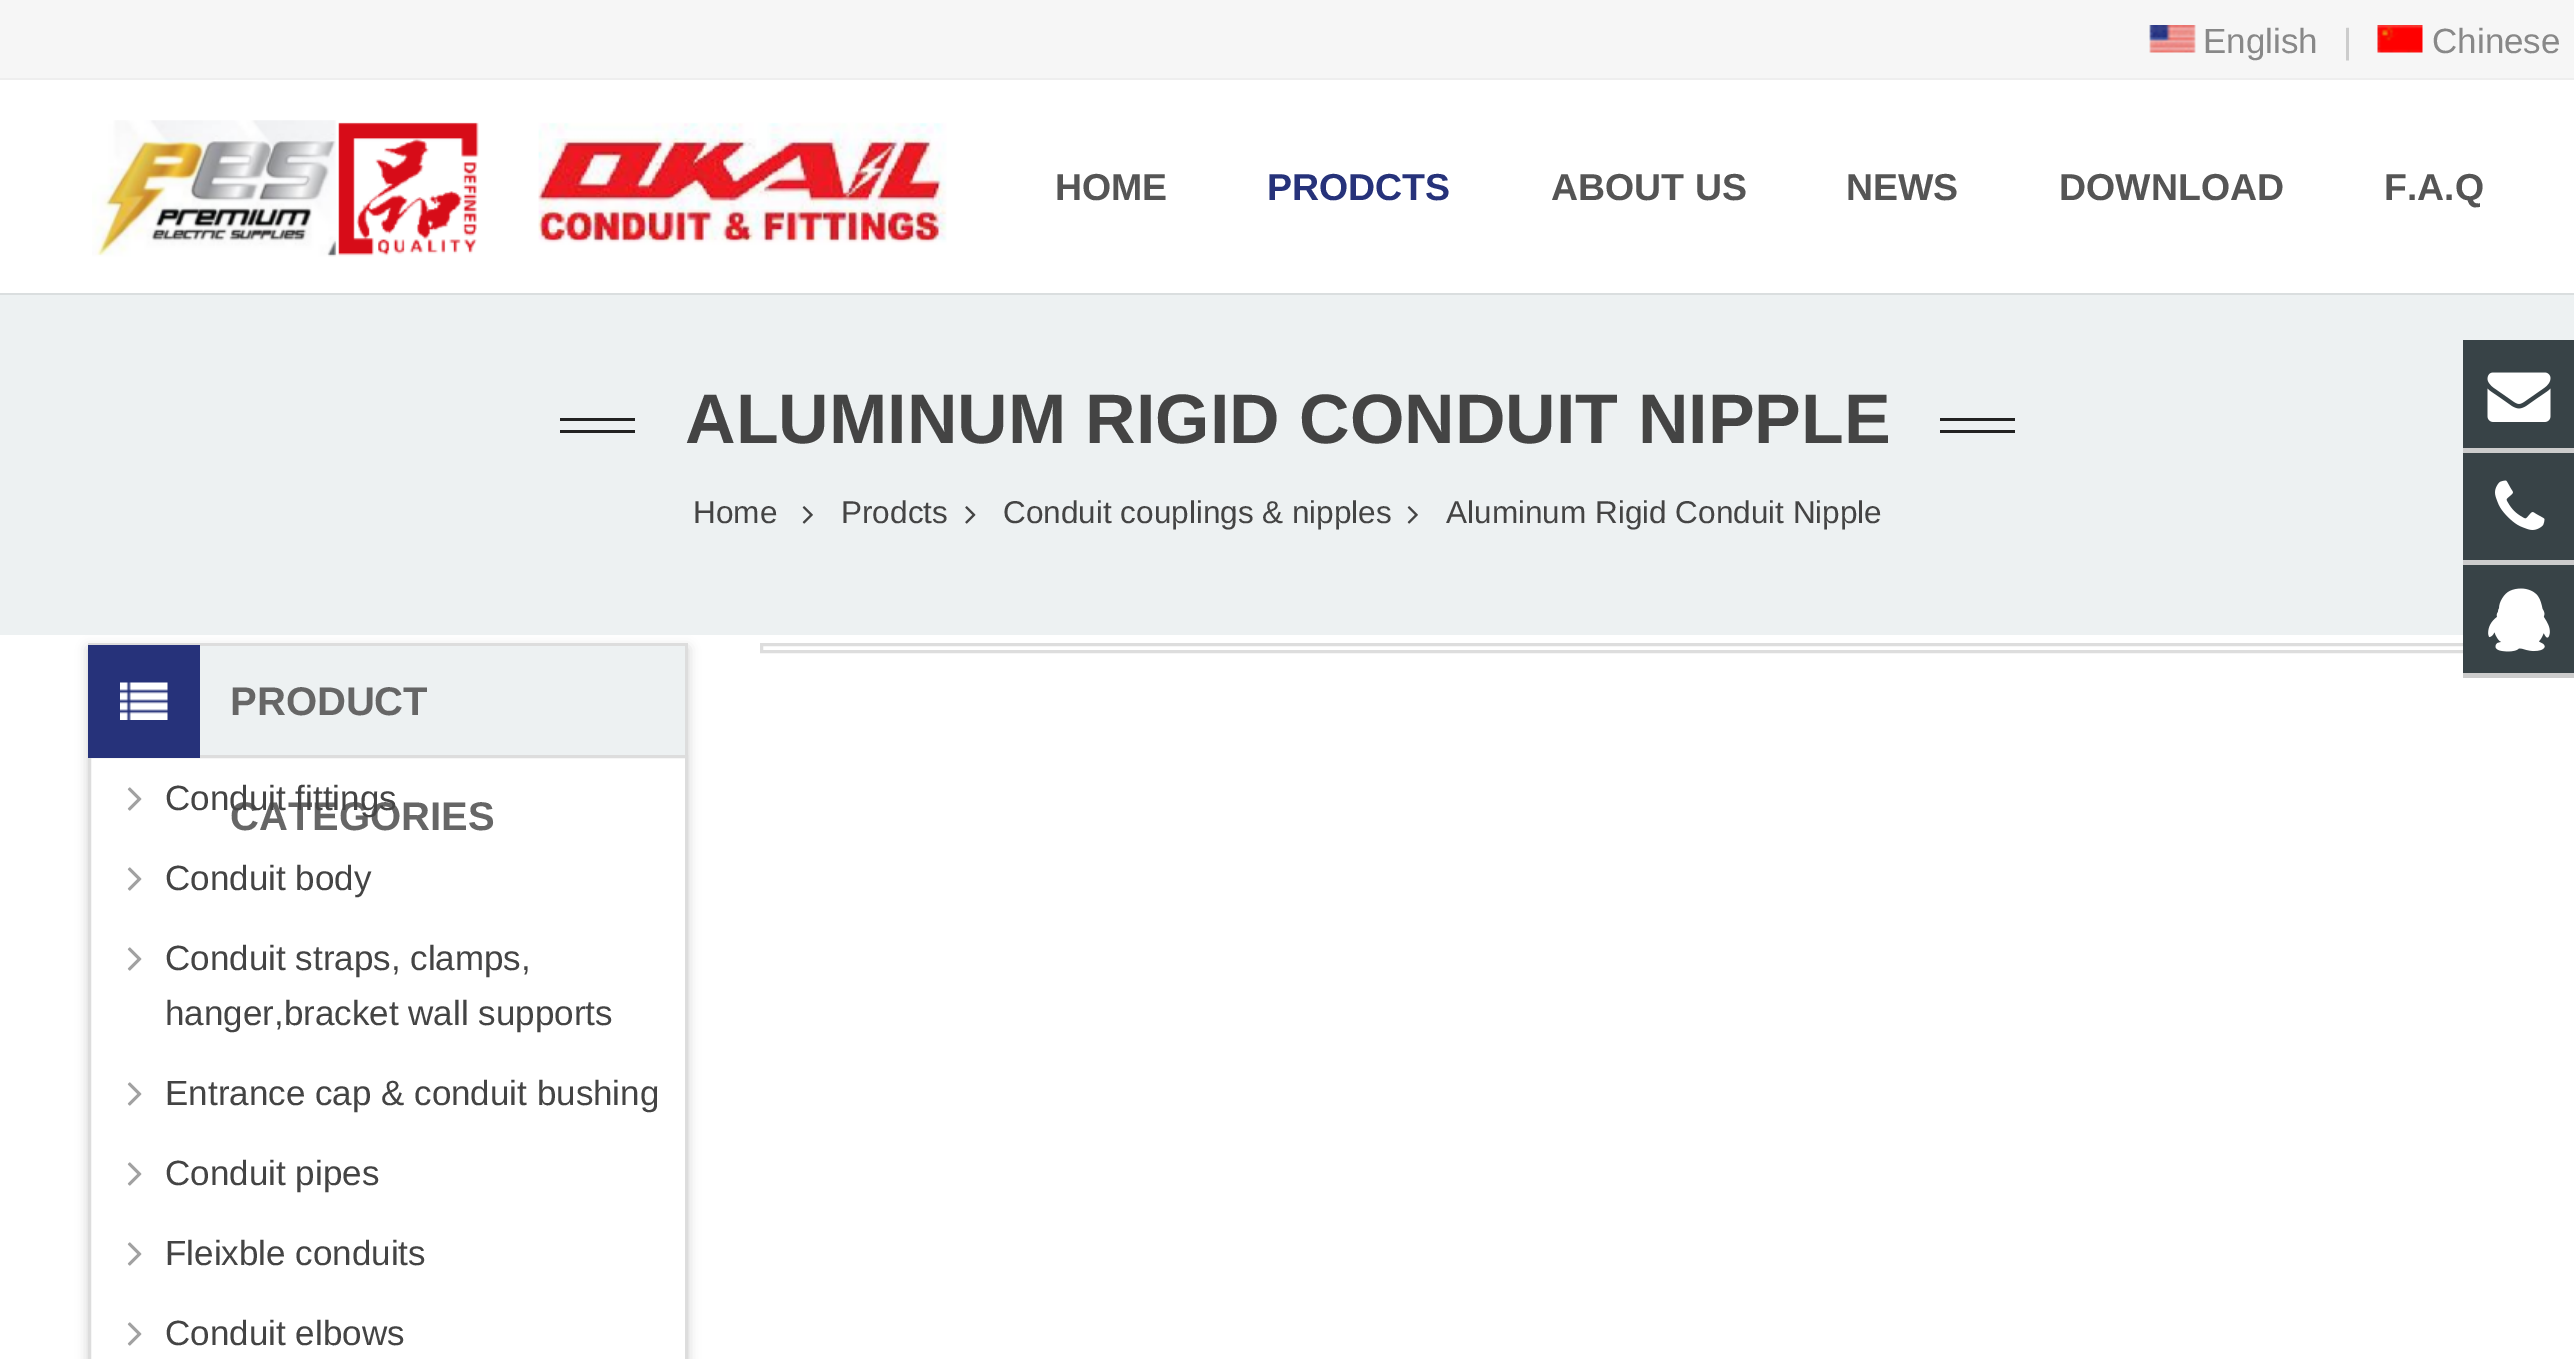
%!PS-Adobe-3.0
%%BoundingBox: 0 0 2574 1359
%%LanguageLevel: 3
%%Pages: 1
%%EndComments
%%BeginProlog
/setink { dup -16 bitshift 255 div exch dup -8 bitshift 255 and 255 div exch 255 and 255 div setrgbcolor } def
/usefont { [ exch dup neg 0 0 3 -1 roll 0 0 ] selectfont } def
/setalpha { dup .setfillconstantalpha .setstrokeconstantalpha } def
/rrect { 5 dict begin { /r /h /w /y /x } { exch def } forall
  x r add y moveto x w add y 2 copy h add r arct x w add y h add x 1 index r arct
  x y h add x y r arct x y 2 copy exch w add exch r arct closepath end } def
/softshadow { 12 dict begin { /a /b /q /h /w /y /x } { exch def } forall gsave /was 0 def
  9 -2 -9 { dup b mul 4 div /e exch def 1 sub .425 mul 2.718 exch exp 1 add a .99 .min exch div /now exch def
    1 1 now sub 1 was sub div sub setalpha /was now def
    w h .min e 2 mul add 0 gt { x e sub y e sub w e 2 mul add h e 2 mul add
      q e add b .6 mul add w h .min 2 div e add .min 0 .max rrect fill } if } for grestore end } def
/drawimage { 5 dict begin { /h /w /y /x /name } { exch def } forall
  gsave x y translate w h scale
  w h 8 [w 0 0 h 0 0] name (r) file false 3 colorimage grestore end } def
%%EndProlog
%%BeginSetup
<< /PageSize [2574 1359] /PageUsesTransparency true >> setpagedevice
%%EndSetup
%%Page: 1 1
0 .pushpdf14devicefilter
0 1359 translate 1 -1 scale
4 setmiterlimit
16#FFFFFF setink
0 0 2574 1359 rectfill
16#F6F6F6 setink
0 0 2574 78 rectfill
16#EEEEEE setink
0 78 2574 2 rectfill
(img1.raw) 2149 25 47 28 drawimage
/LiberationSans-Regular 35 usefont
16#888888 setink
2203 53 moveto (English) show
16#CCCCCC setink
2343 53 moveto (|) show
(img2.raw) 2377 25 46 28 drawimage
16#888888 setink
2432 53 moveto (Chinese) show
16#DADEDF setink
0 293 2574 2 rectfill
(img3.raw) 92 120 855 137 drawimage
/LiberationSans-Bold 37.5 usefont
16#555555 setink
1055 200 moveto (HOME) show
16#26327A setink
1267 200 moveto (PRODCTS) show
16#555555 setink
[
    [(ABOUT US) 1551 200]
    [(NEWS) 1846 200]
    [(DOWNLOAD) 2059 200]
    [(F.A.Q) 2384 200]
] { aload pop moveto show } forall
gsave
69 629 moveto 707 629 lineto 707 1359 lineto 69 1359 lineto closepath 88 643 moveto 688 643 lineto 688 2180 lineto 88 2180 lineto closepath eoclip newpath
16#000000 setink
88 648 600 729 0 6 0.18 softshadow
grestore
[
    [0 295 2574 340 16#EDF1F2]
    [560 418 75 3 16#222222]
    [560 430 75 3 16#222222]
] { aload pop setink rectfill } forall
/LiberationSans-Bold 70 usefont
16#444444 setink
685 443 moveto (ALUMINUM RIGID CONDUIT NIPPLE) show
16#222222 setink
1940 418 75 3 rectfill
1940 430 75 3 rectfill
/LiberationSans-Regular 31.5 usefont
16#444444 setink
693 523 moveto (Home) show
(img4.raw) 802 506 11 18 drawimage
841 523 moveto (Prodcts) show
(img5.raw) 965 506 11 18 drawimage
1003 523 moveto (Conduit couplings & nipples) show
(img4.raw) 1407 506 11 18 drawimage
1446 523 moveto (Aluminum Rigid Conduit Nipple) show
16#DDDDDD setink
3 setlinewidth
761.5 644.5 1725 7 rectstroke
[
    [200 646 485 109 16#EDF1F2]
    [88 643 600 3 16#DDDDDD]
    [685 643 3 112 16#DDDDDD]
] { aload pop setink rectfill } forall
89.5 756.5 597 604 rectstroke
16#26327A setink
88 645 112 113 rectfill
(img6.raw) 120 682 48 38 drawimage
/LiberationSans-Bold 40 usefont
16#666666 setink
230 715 moveto (PRODUCT) show
230 830 moveto (CATEGORIES) show
(img7.raw) 127 787 15 24 drawimage
/LiberationSans-Regular 35 usefont
16#444444 setink
165 810 moveto (Conduit fittings) show
(img7.raw) 127 867 15 24 drawimage
165 890 moveto (Conduit body) show
(img7.raw) 127 947 15 24 drawimage
165 970 moveto (Conduit straps, clamps,) show
165 1025 moveto (hanger,bracket wall supports) show
(img7.raw) 127 1082 15 24 drawimage
165 1105 moveto (Entrance cap & conduit bushing) show
(img7.raw) 127 1162 15 24 drawimage
165 1185 moveto (Conduit pipes) show
(img7.raw) 127 1242 15 24 drawimage
165 1265 moveto (Fleixble conduits) show
(img7.raw) 127 1322 15 24 drawimage
165 1345 moveto (Conduit elbows) show
16#384347 setink
2463 340 111 333 rectfill
16#CCCCCC setink
2463 448 111 5 rectfill
(img8.raw) 2487 372 64 50 drawimage
2463 560 111 5 rectfill
(img9.raw) 2495 480 50 50 drawimage
2463 673 111 5 rectfill
(img10.raw) 2488 588 62 64 drawimage
.poppdf14devicefilter showpage
%%EOF
